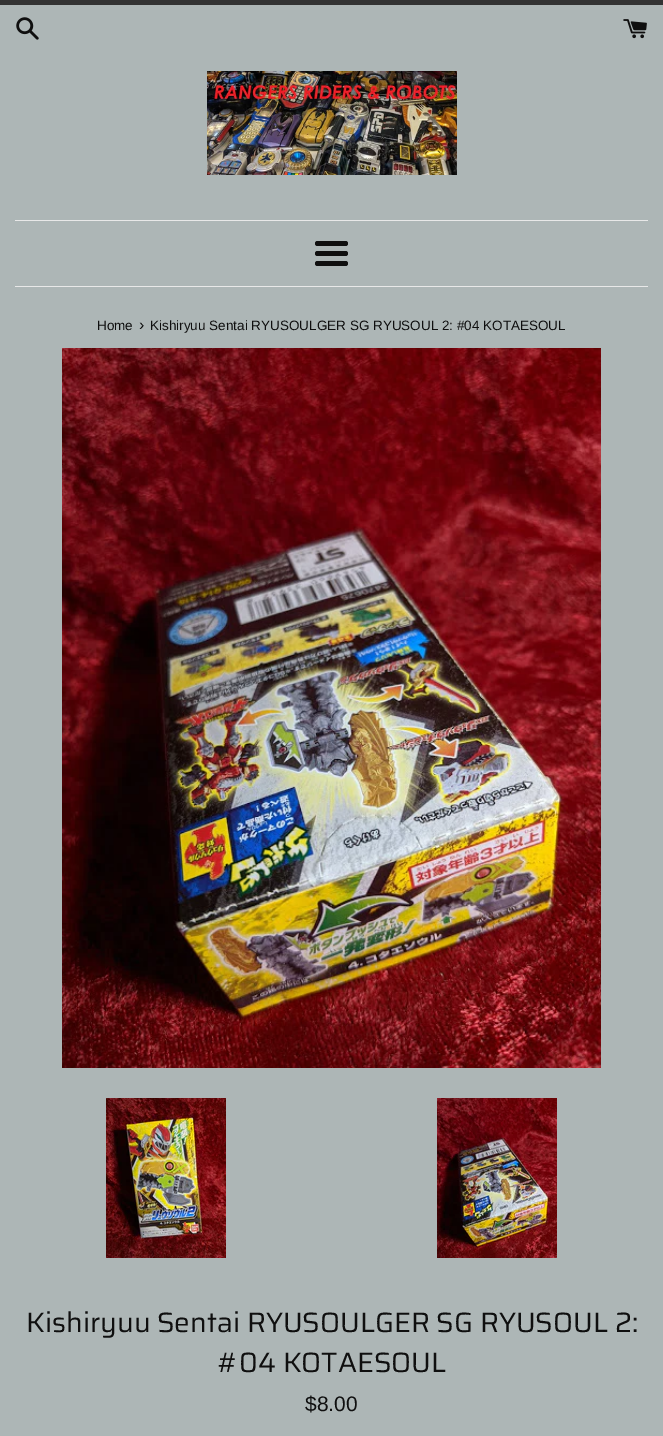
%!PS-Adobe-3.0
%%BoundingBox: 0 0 663 1436
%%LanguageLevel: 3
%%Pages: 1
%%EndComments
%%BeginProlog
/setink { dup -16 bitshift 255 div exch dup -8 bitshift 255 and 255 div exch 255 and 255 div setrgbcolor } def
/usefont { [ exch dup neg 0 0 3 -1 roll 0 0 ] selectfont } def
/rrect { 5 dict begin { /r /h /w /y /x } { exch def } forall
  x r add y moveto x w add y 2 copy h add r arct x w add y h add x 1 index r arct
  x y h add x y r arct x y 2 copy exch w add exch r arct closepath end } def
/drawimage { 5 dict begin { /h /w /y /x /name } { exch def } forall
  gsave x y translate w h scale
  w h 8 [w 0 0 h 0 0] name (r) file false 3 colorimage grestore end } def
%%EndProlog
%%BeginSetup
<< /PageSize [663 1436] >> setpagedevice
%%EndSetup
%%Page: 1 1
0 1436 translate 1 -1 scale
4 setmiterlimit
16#ADB6B6 setink
0 0 663 1436 rectfill
16#333333 setink
0 0 663 5 rectfill
(img1.raw) 16 17 23 23 drawimage
(img2.raw) 623 19 24 20 drawimage
(img3.raw) 207 71 250 104 drawimage
16#E8E8E8 setink
15 220 633 1 rectfill
16#0F0F0F setink
315 241 33 5 2.5 rrect fill
315 251 33 5 2.5 rrect fill
315 261 33 5 2.5 rrect fill
16#E8E8E8 setink
15 286 633 1 rectfill
/LiberationSans-Regular 13.5 usefont
16#0F0F0F setink
97 330 moveto (Home) show
/LiberationSans-Regular 16 usefont
139 330 moveto (›) show
/LiberationSans-Regular 13.5 usefont
150 330 moveto (Kishiryuu Sentai RYUSOULGER SG RYUSOUL 2: #04 KOTAESOUL) show
(img4.raw) 62 348 539 720 drawimage
(img5.raw) 106 1098 120 160 drawimage
(img6.raw) 437 1098 120 160 drawimage
/Saira-Regular 28 usefont
26 1332 moveto (Kishiryuu Sentai RYUSOULGER SG RYUSOUL 2:) show
217 1372 moveto (#04 KOTAESOUL) show
/LiberationSans-Regular 21 usefont
305 1411 moveto ($8.00) show
showpage
%%EOF
